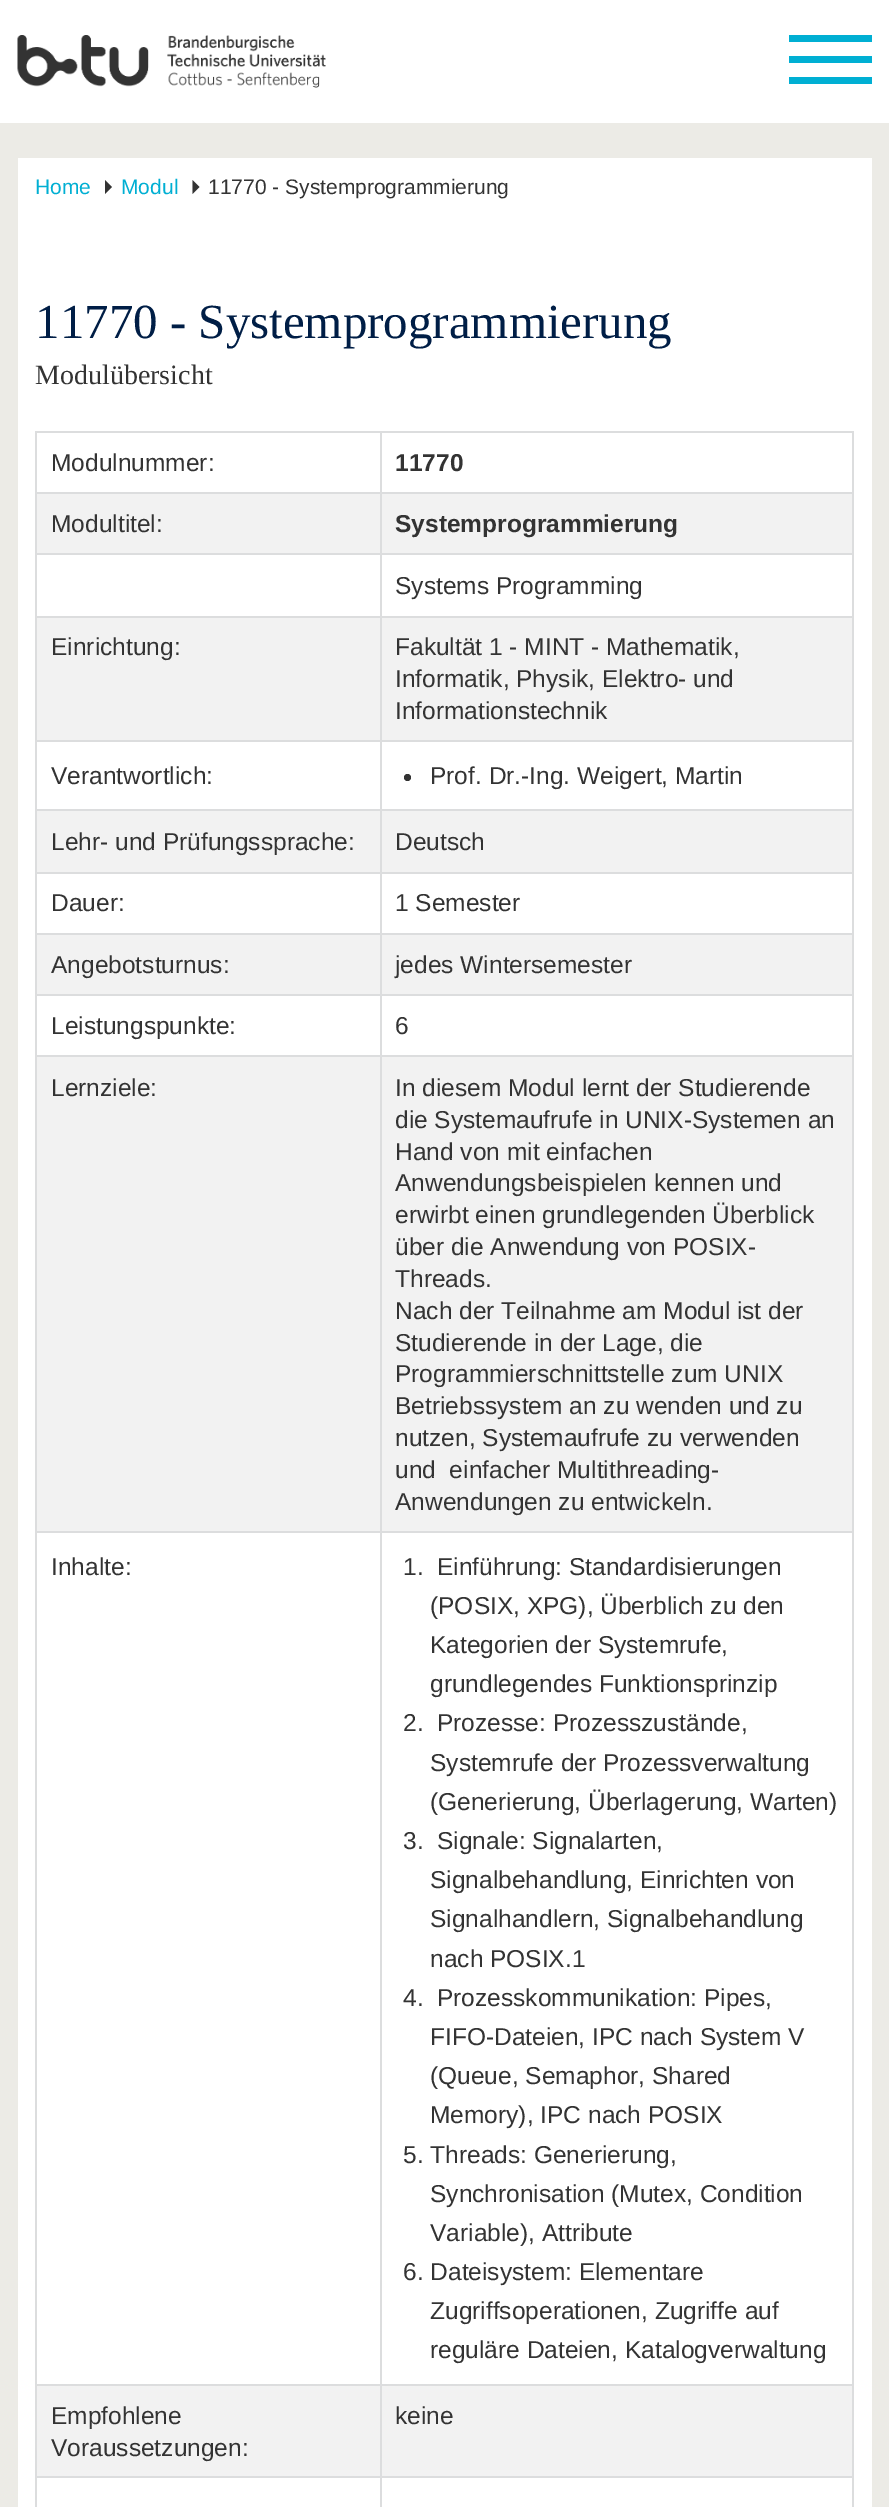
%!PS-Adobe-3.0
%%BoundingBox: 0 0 889 2507
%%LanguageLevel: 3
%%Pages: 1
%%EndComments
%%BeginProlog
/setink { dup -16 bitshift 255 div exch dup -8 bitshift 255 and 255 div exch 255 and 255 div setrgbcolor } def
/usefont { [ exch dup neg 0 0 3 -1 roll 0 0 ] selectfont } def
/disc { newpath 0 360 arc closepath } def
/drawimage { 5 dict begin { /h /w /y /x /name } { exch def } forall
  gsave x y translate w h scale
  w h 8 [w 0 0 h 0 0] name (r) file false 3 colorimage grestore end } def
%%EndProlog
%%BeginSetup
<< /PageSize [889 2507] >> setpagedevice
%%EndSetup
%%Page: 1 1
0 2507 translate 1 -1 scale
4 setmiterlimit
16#FFFFFF setink
0 0 889 2507 rectfill
(img1.raw) 17 35 309 53 drawimage
[
    [789 77 83 7 16#00AFD3]
    [789 56 83 7 16#00AFD3]
    [789 35 83 7 16#00AFD3]
    [0 123 889 2384 16#ECEBE6]
    [18 158 854 2349 16#FFFFFF]
] { aload pop setink rectfill } forall
/LiberationSans-Regular 21 usefont
16#00AFD3 setink
35 194 moveto (Home) show
16#333333 setink
105 194 moveto 105 180 lineto 112 187 lineto closepath fill
16#00AFD3 setink
121 194 moveto (Modul) show
16#333333 setink
192.5 194 moveto 192.5 180 lineto 199.5 187 lineto closepath fill
208 194 moveto (11770 - Systemprogrammierung) show
/LiberationSerif-Regular 49 usefont
16#001E46 setink
35 338 moveto (11770 - Systemprogrammierung) show
/LiberationSerif-Regular 28 usefont
16#333333 setink
35 384 moveto (Modulübersicht) show
[
    [35 431 819 2 16#DCDDDE]
    [852 431 2 2076 16#DCDDDE]
    [35 431 2 2076 16#DCDDDE]
] { aload pop setink rectfill } forall
/LiberationSans-Regular 24.5 usefont
16#333333 setink
51 471 moveto (Modulnummer:) show
[
    [380 492 474 2 16#DCDDDE]
    [37 494 815 59 16#F2F2F2]
    [380 553 474 2 16#DCDDDE]
    [380 616 474 2 16#DCDDDE]
    [37 618 815 122 16#F2F2F2]
    [380 740 474 2 16#DCDDDE]
    [380 809 474 2 16#DCDDDE]
    [37 811 815 61 16#F2F2F2]
    [380 872 474 2 16#DCDDDE]
    [380 933 474 2 16#DCDDDE]
    [37 935 815 59 16#F2F2F2]
    [380 994 474 2 16#DCDDDE]
    [380 1055 474 2 16#DCDDDE]
    [37 1057 815 474 16#F2F2F2]
    [380 1531 474 2 16#DCDDDE]
    [380 2384 474 2 16#DCDDDE]
    [37 2386 815 90 16#F2F2F2]
    [380 2476 474 2 16#DCDDDE]
    [380 2476 2 31 16#DCDDDE]
    [35 2476 347 2 16#DCDDDE]
    [380 2384 2 94 16#DCDDDE]
    [35 2384 347 2 16#DCDDDE]
    [380 1531 2 854 16#DCDDDE]
    [35 1531 347 2 16#DCDDDE]
    [380 1055 2 478 16#DCDDDE]
    [35 1055 347 2 16#DCDDDE]
    [380 994 2 63 16#DCDDDE]
    [35 994 347 2 16#DCDDDE]
    [380 933 2 63 16#DCDDDE]
    [35 933 347 2 16#DCDDDE]
    [380 872 2 63 16#DCDDDE]
    [35 872 347 2 16#DCDDDE]
    [380 809 2 64 16#DCDDDE]
    [35 809 347 2 16#DCDDDE]
    [380 740 2 70 16#DCDDDE]
    [35 740 347 2 16#DCDDDE]
    [380 616 2 126 16#DCDDDE]
    [35 616 347 2 16#DCDDDE]
    [380 553 2 65 16#DCDDDE]
    [35 553 347 2 16#DCDDDE]
    [380 492 2 63 16#DCDDDE]
    [35 492 347 2 16#DCDDDE]
    [380 431 2 63 16#DCDDDE]
] { aload pop setink rectfill } forall
/LiberationSans-Bold 24.5 usefont
16#333333 setink
395 471 moveto (11770) show
/LiberationSans-Regular 24.5 usefont
51 532 moveto (Modultitel:) show
/LiberationSans-Bold 24.5 usefont
395 532 moveto (Systemprogrammierung) show
/LiberationSans-Regular 24.5 usefont
[
    [(Systems Programming) 395 594]
    [(Einrichtung:) 51 655]
    [(Fakultät 1 - MINT - Mathematik,) 395 655]
    [(Informatik, Physik, Elektro- und) 395 687]
    [(Informationstechnik) 395 719]
    [(Verantwortlich:) 51 784]
] { aload pop moveto show } forall
407.5 777.5 3.5 disc fill
[
    [(Prof. Dr.-Ing. Weigert, Martin) 430 784]
    [(Lehr- und Prüfungssprache:) 51 850]
    [(Deutsch) 395 850]
    [(Dauer:) 51 911]
    [(1 Semester) 395 911]
    [(Angebotsturnus:) 51 973]
    [(jedes Wintersemester) 395 973]
    [(Leistungspunkte:) 51 1034]
    [(6) 395 1034]
    [(Lernziele:) 51 1096]
    [(In diesem Modul lernt der Studierende) 395 1096]
    [(die Systemaufrufe in UNIX-Systemen an) 395 1128]
    [(Hand von mit einfachen) 395 1160]
    [(Anwendungsbeispielen kennen und) 395 1191]
    [(erwirbt einen grundlegenden Überblick) 395 1223]
    [(über die Anwendung von POSIX-) 395 1255]
    [(Threads.) 395 1287]
    [(Nach der Teilnahme am Modul ist der) 395 1319]
    [(Studierende in der Lage, die) 395 1351]
    [(Programmierschnittstelle zum UNIX) 395 1382]
    [(Betriebssystem an zu wenden und zu) 395 1414]
    [(nutzen, Systemaufrufe zu verwenden) 395 1446]
    [(und  einfacher Multithreading-) 395 1478]
    [(Anwendungen zu entwickeln.) 395 1510]
    [(Inhalte:) 51 1575]
    [(1.) 403 1575]
    [(Einführung: Standardisierungen) 437 1575]
    [(\(POSIX, XPG\), Überblich zu den) 430 1614]
    [(Kategorien der Systemrufe,) 430 1653]
    [(grundlegendes Funktionsprinzip) 430 1692]
    [(2.) 403 1731]
    [(Prozesse: Prozesszustände,) 437 1731]
    [(Systemrufe der Prozessverwaltung) 430 1771]
    [(\(Generierung, Überlagerung, Warten\)) 430 1810]
    [(3.) 403 1849]
    [(Signale: Signalarten,) 437 1849]
    [(Signalbehandlung, Einrichten von) 430 1888]
    [(Signalhandlern, Signalbehandlung) 430 1927]
    [(nach POSIX.1) 430 1967]
    [(4.) 403 2006]
    [(Prozesskommunikation: Pipes,) 437 2006]
    [(FIFO-Dateien, IPC nach System V) 430 2045]
    [(\(Queue, Semaphor, Shared) 430 2084]
    [(Memory\), IPC nach POSIX) 430 2123]
    [(5. Threads: Generierung,) 403 2163]
    [(Synchronisation \(Mutex, Condition) 430 2202]
    [(Variable\), Attribute) 430 2241]
    [(6. Dateisystem: Elementare) 403 2280]
    [(Zugriffsoperationen, Zugriffe auf) 430 2319]
    [(reguläre Dateien, Katalogverwaltung) 430 2358]
    [(Empfohlene) 51 2424]
    [(Voraussetzungen:) 51 2456]
    [(keine) 395 2424]
] { aload pop moveto show } forall
showpage
%%EOF
